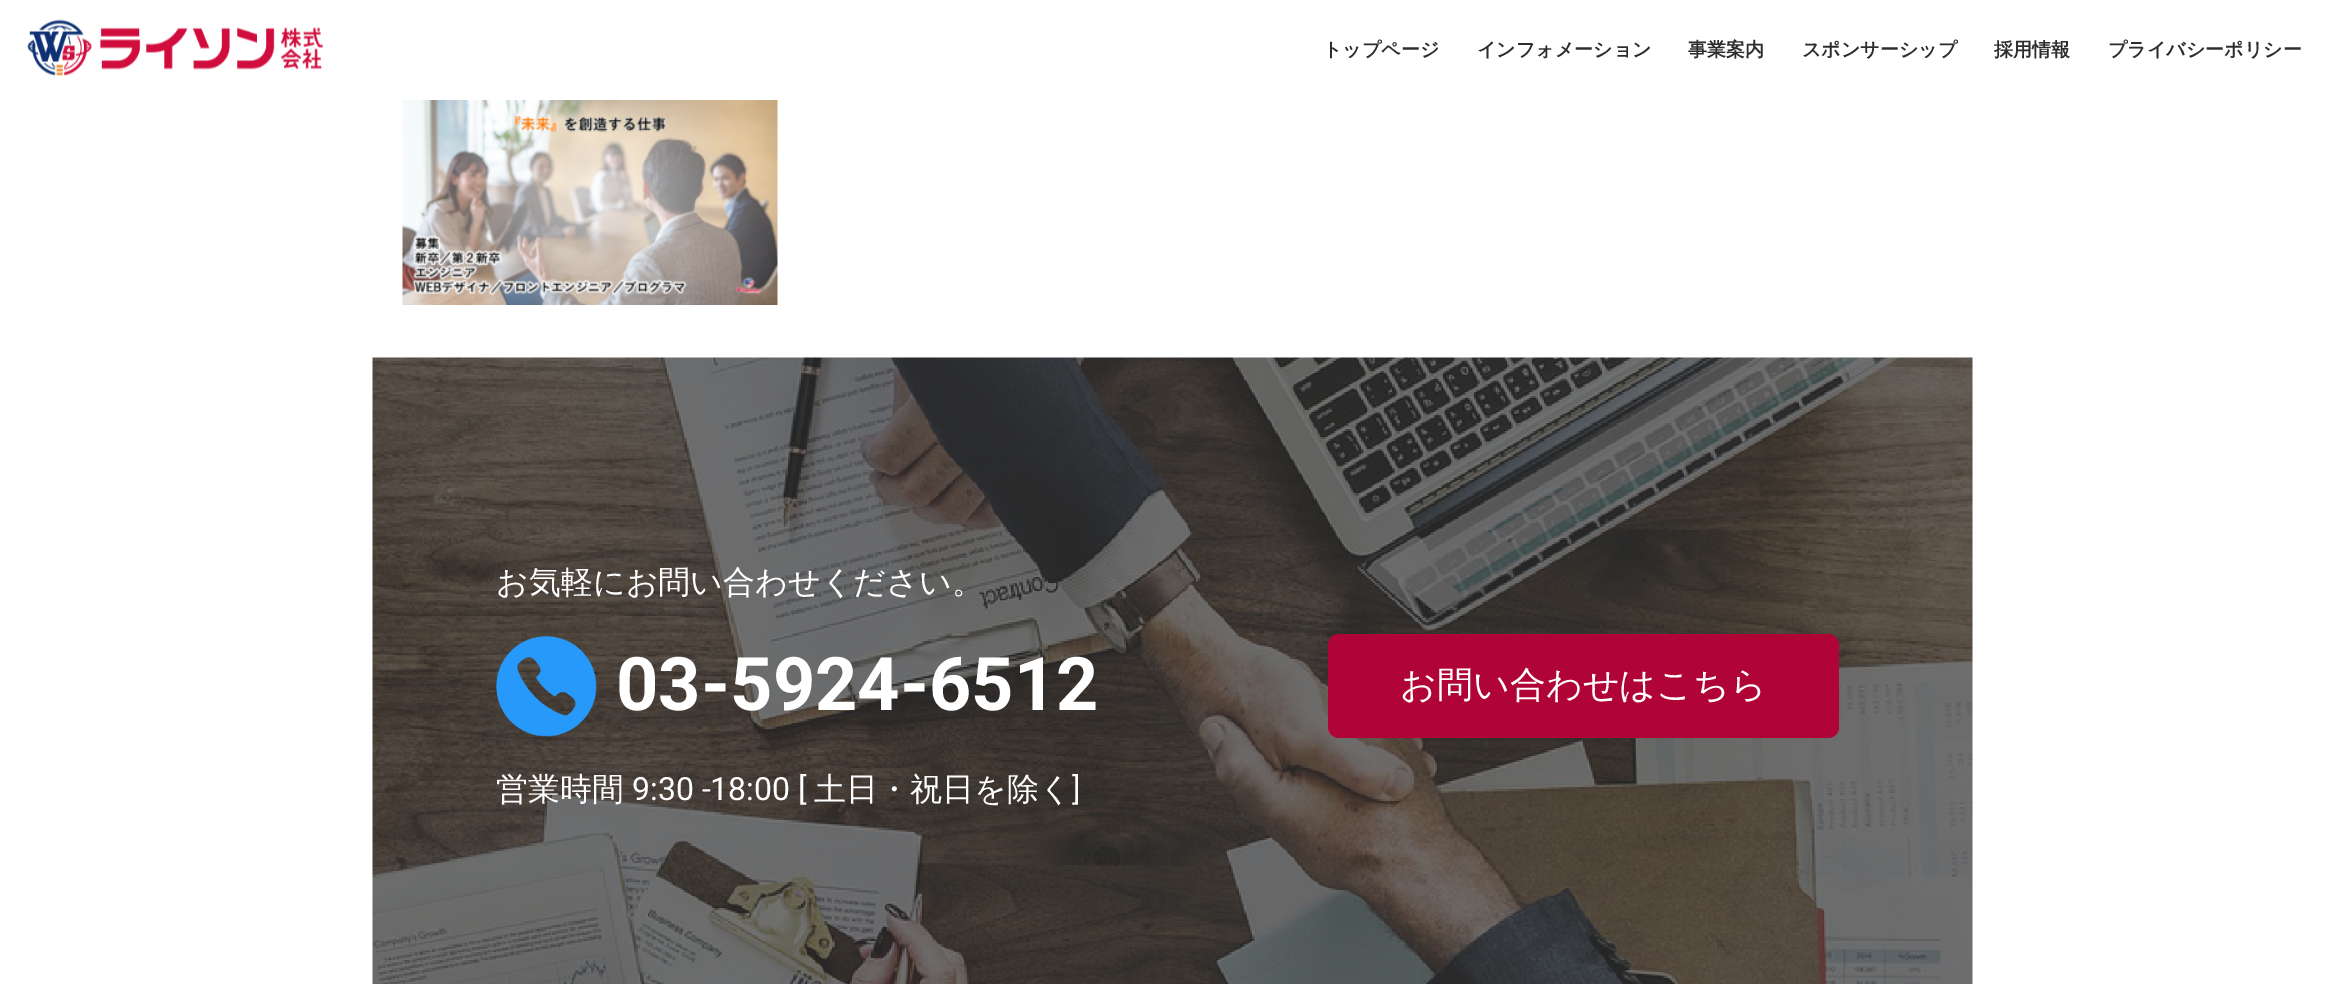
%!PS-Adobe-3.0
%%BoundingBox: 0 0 2344 984
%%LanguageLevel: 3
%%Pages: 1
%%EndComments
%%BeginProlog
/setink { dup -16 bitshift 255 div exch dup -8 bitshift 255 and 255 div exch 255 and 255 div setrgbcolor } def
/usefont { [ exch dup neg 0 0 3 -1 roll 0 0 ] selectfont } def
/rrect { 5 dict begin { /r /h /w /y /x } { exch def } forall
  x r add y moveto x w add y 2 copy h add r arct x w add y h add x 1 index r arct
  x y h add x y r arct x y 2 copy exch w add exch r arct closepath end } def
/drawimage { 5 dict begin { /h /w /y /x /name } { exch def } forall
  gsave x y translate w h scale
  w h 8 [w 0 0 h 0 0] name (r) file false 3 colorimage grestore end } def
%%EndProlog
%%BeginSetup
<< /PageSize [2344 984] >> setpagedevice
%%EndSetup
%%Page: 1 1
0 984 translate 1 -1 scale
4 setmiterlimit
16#FFFFFF setink
0 0 2344 984 rectfill
(img1.raw) 27 19 296 57 drawimage
/WenQuanYiZenHei-Bold 19 usefont
16#2D2D2D setink
[
    [(トップページ) 1323 56]
    [(インフォメーション) 1477 56]
    [(事業案内) 1688 56]
    [(スポンサーシップ) 1802 56]
    [(採用情報) 1994 56]
    [(プライバシーポリシー) 2108 56]
] { aload pop moveto show } forall
(img2.raw) 402 100 376 205 drawimage
(img3.raw) 372 357 1601 627 drawimage
/WenQuanYiZenHei-Medium 32 usefont
16#FFFFFF setink
496 593 moveto (お気軽にお問い合わせください。) show
(img4.raw) 496 636 101 101 drawimage
/Roboto-Bold 74 usefont
616 710 moveto (03-5924-6512) show
/WenQuanYiZenHei-Medium 32 usefont
496 800 moveto (営業時間) show
/Roboto-Regular 32 usefont
632 800 moveto (9:30 -18:00 [) show
/WenQuanYiZenHei-Medium 32 usefont
814 800 moveto (土日・祝日を除く) show
/Roboto-Regular 32 usefont
1072 800 moveto (]) show
16#B10436 setink
1328 634 511 104 11 rrect fill
/WenQuanYiZenHei-Medium 36 usefont
16#FFFFFF setink
1400 697 moveto (お問い合わせはこちら) show
showpage
%%EOF
